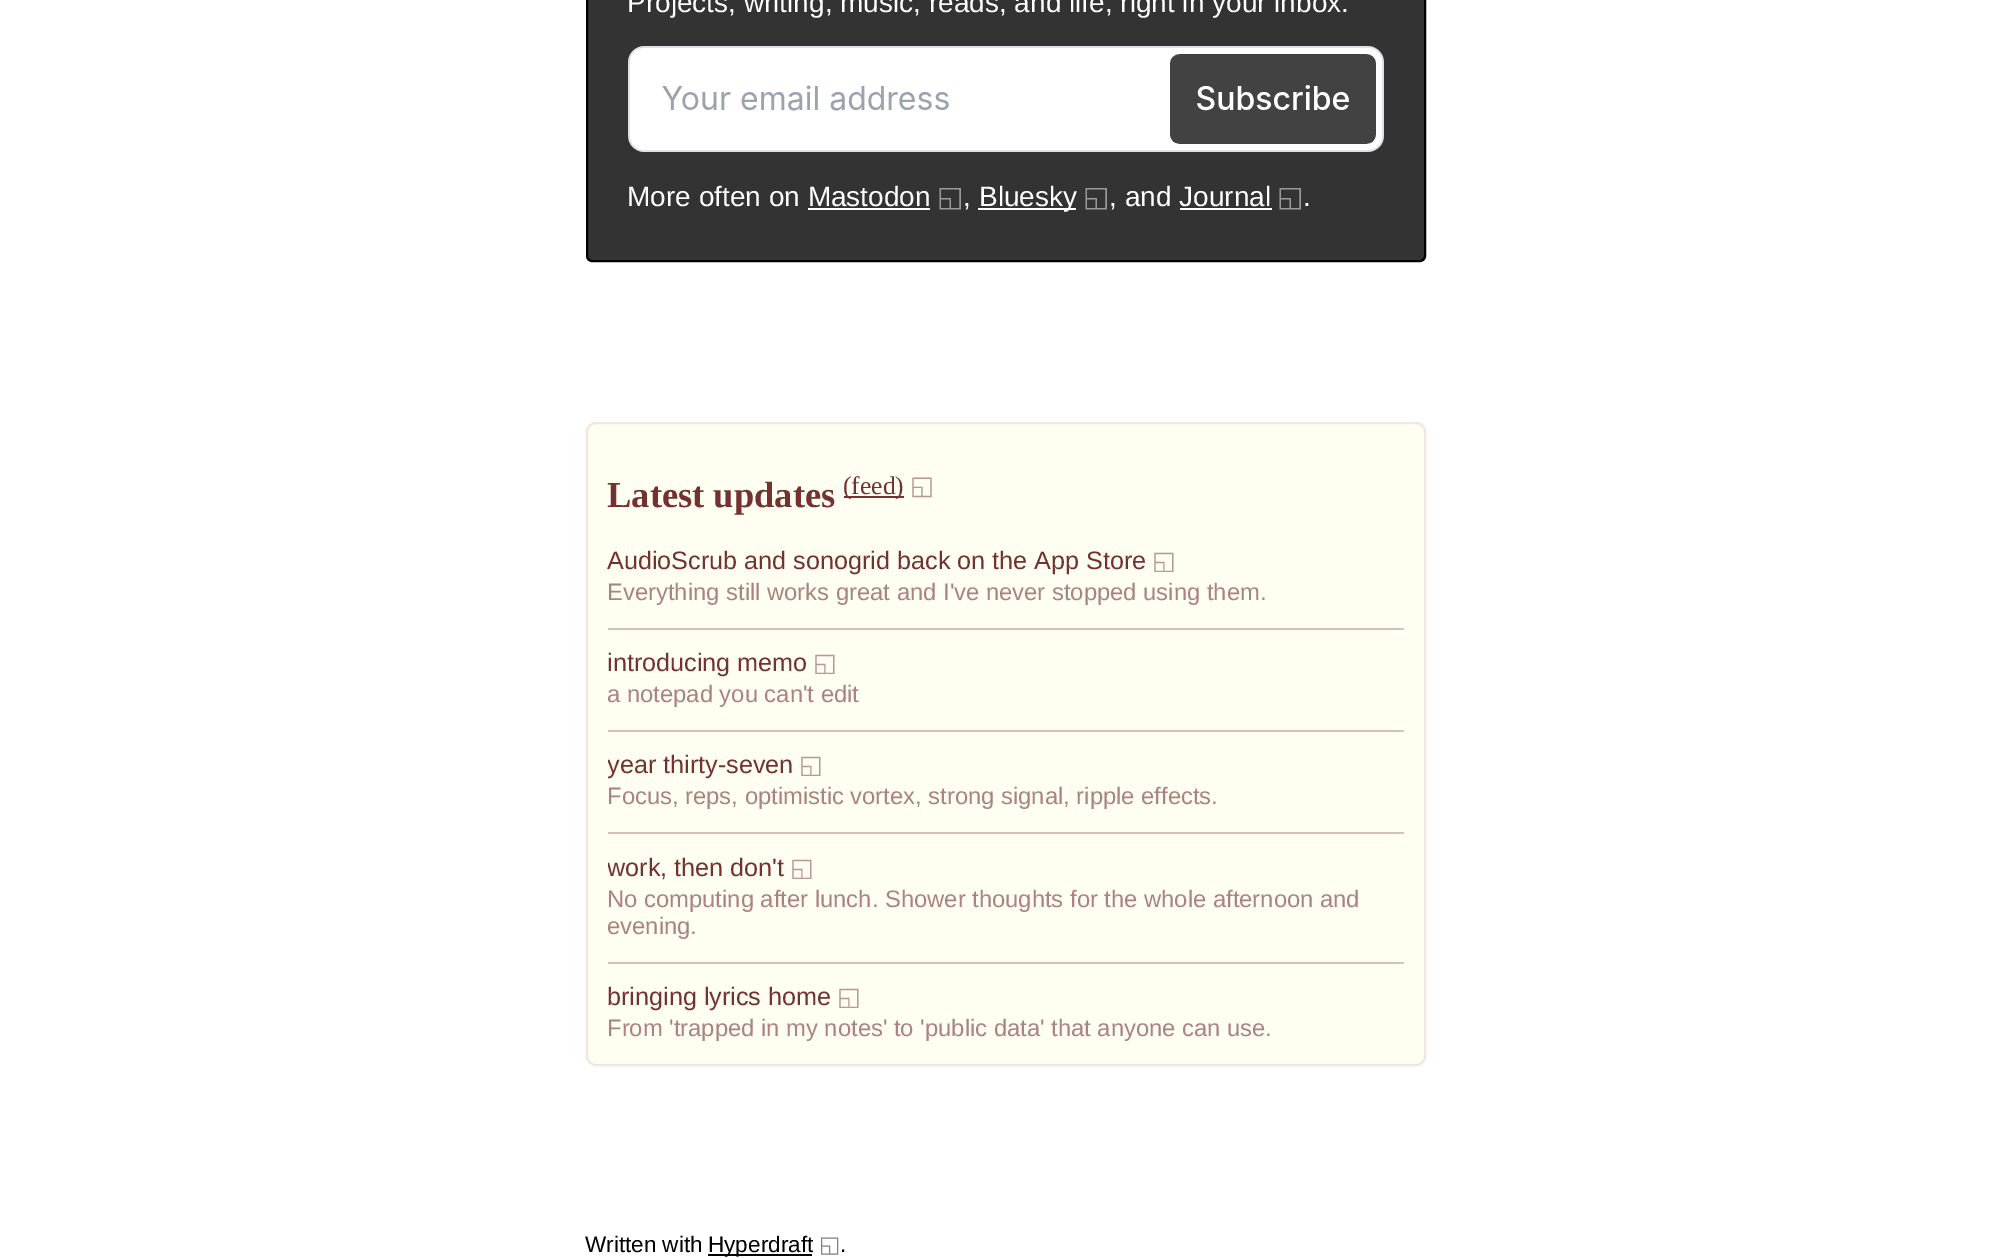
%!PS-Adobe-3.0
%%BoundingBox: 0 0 2010 1258
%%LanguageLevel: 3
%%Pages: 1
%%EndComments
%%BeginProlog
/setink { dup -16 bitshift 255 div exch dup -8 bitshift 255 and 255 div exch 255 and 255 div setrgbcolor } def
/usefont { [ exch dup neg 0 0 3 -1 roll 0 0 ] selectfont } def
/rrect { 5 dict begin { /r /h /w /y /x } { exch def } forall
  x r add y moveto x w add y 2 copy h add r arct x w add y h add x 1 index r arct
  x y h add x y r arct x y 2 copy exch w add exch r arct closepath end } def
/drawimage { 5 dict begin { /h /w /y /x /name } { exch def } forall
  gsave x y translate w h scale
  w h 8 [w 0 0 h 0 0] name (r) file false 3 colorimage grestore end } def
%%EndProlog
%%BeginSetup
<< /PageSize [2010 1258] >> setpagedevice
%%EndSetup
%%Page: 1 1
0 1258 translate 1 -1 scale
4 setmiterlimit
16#FFFFFF setink
0 0 2010 1258 rectfill
16#333333 setink
587 -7 838 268 5 rrect gsave fill grestore
16#000000 setink
2 setlinewidth
stroke
/LiberationSans-Regular 28 usefont
16#FFFFFF setink
627 12 moveto (Projects, writing, music, reads, and life, right in your inbox.) show
(img1.raw) 628 46 756 106 drawimage
627 206 moveto (More often on Mastodon) show
808 208 122 2 rectfill
/DejaVuSans-Regular 28 usefont
16#999999 setink
937 206 moveto (◱) show
/LiberationSans-Regular 28 usefont
16#FFFFFF setink
963 206 moveto (,) show
978 208 98 2 rectfill
979 206 moveto (Bluesky) show
/DejaVuSans-Regular 28 usefont
16#999999 setink
1083 206 moveto (◱) show
/LiberationSans-Regular 28 usefont
16#FFFFFF setink
1109 206 moveto (, and Journal) show
1180 208 92 2 rectfill
/DejaVuSans-Regular 28 usefont
16#999999 setink
1277 206 moveto (◱) show
/LiberationSans-Regular 28 usefont
16#FFFFFF setink
1303 206 moveto (.) show
16#FFFFF1 setink
587 423 838 642 9 rrect gsave fill grestore
16#F3E5E5 setink
stroke
/LiberationSerif-Bold 36.5 usefont
16#733132 setink
607 507 moveto (Latest updates) show
844 496 60 2 rectfill
/LiberationSerif-Regular 25.5 usefont
843 494 moveto (\(feed\)) show
/DejaVuSans-Regular 25.5 usefont
16#B99892 setink
910 494 moveto (◱) show
/LiberationSans-Regular 25.2 usefont
16#733132 setink
607 569 moveto (AudioScrub and sonogrid back on the App Store) show
/DejaVuSans-Regular 25.2 usefont
16#B99892 setink
1152 569 moveto (◱) show
/LiberationSans-Regular 23.8 usefont
16#AB837E setink
607 600 moveto (Everything still works great and I've never stopped using them.) show
16#D5C1B8 setink
608 628 796 2 rectfill
/LiberationSans-Regular 25.2 usefont
16#733132 setink
607 671 moveto (introducing memo) show
/DejaVuSans-Regular 25.2 usefont
16#B99892 setink
813 671 moveto (◱) show
/LiberationSans-Regular 23.8 usefont
16#AB837E setink
607 702 moveto (a notepad you can't edit) show
16#D5C1B8 setink
608 730 796 2 rectfill
gsave
608 752 716 28 rectclip
/LiberationSans-Regular 25.2 usefont
16#733132 setink
607 773 moveto (year thirty-seven) show
grestore
/DejaVuSans-Regular 25.2 usefont
16#B99892 setink
799 773 moveto (◱) show
/LiberationSans-Regular 23.8 usefont
16#AB837E setink
607 804 moveto (Focus, reps, optimistic vortex, strong signal, ripple effects.) show
16#D5C1B8 setink
608 832 796 2 rectfill
gsave
608 854 716 28 rectclip
/LiberationSans-Regular 25.2 usefont
16#733132 setink
607 876 moveto (work, then don't) show
grestore
/DejaVuSans-Regular 25.2 usefont
16#B99892 setink
790 876 moveto (◱) show
/LiberationSans-Regular 23.8 usefont
16#AB837E setink
607 907 moveto (No computing after lunch. Shower thoughts for the whole afternoon and) show
607 934 moveto (evening.) show
16#D5C1B8 setink
608 962 796 2 rectfill
/LiberationSans-Regular 25.2 usefont
16#733132 setink
607 1005 moveto (bringing lyrics home) show
/DejaVuSans-Regular 25.2 usefont
16#B99892 setink
837 1005 moveto (◱) show
/LiberationSans-Regular 23.8 usefont
16#AB837E setink
607 1036 moveto (From 'trapped in my notes' to 'public data' that anyone can use.) show
/LiberationSans-Regular 22.5 usefont
16#000000 setink
585 1252 moveto (Written with) show
708 1254 104 2 rectfill
708 1252 moveto (Hyperdraft) show
/DejaVuSans-Regular 22.5 usefont
16#808080 setink
819 1252 moveto (◱) show
/LiberationSans-Regular 22.5 usefont
16#000000 setink
840 1252 moveto (.) show
showpage
%%EOF
